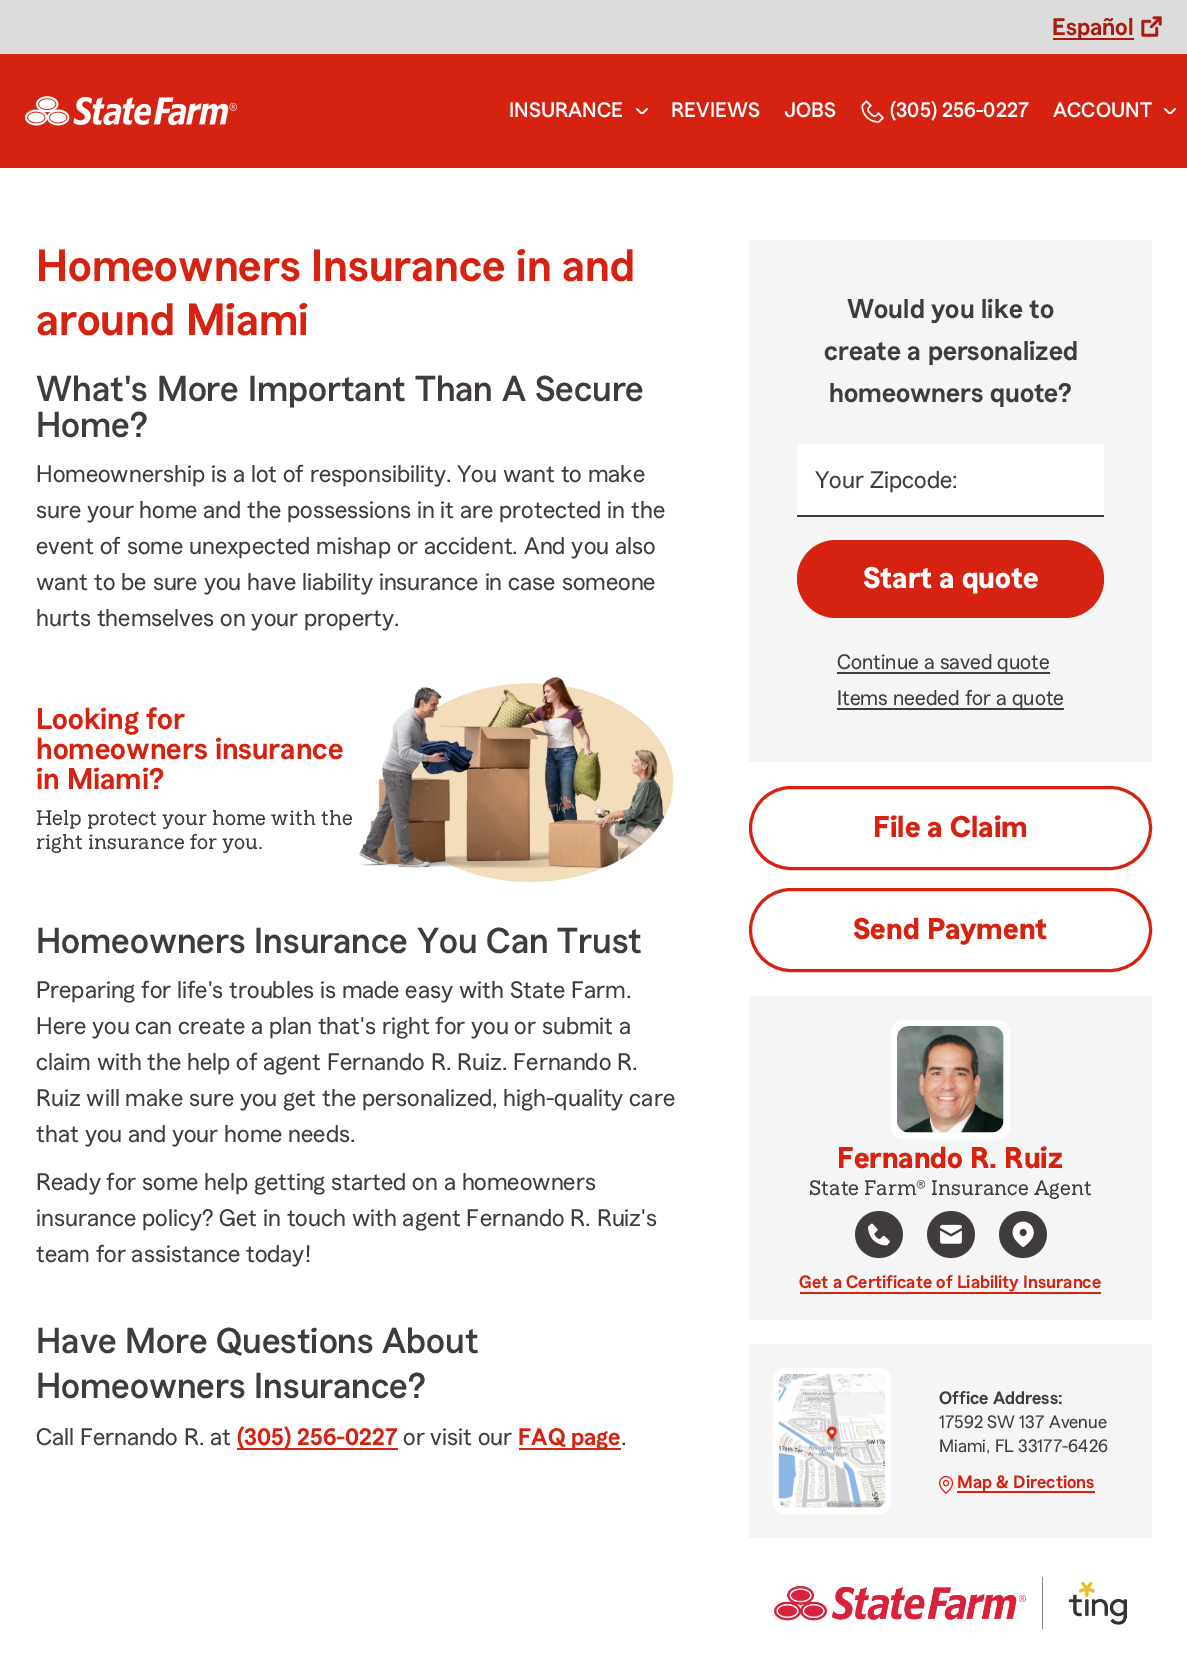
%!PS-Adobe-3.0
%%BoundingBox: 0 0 1187 1661
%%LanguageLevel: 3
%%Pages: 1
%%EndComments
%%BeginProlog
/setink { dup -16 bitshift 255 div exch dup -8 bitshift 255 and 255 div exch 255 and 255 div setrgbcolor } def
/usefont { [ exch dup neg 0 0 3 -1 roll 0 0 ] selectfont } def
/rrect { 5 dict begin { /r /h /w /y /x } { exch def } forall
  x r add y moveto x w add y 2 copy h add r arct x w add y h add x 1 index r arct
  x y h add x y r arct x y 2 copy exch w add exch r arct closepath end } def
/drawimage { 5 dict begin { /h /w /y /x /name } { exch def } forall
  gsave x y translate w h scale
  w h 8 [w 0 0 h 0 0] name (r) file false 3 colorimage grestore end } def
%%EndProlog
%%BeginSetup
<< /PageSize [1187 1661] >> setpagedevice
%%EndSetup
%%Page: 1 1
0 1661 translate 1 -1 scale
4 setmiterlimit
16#FFFFFF setink
0 0 1187 1661 rectfill
16#DCDCDC setink
0 0 1187 54 rectfill
16#AA1B0D setink
1053 38 81 2 rectfill
/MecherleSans-SemiBold 24 usefont
1052 35 moveto (Español) show
(img1.raw) 1141 16 21 21 drawimage
16#D62311 setink
0 54 1187 114 rectfill
(img2.raw) 25 96 212 30 drawimage
/MecherleSans-Medium 21 usefont
16#FFFFFF setink
509 117 moveto (INSURANCE) show
(img3.raw) 636 108 12 6 drawimage
671 117 moveto (REVIEWS) show
784 117 moveto (JOBS) show
(img4.raw) 861 100 24 23 drawimage
890 117 moveto (\(305\) 256-0227) show
1053 117 moveto (ACCOUNT) show
(img3.raw) 1164 108 12 6 drawimage
/MecherleSans-SemiBold 45 usefont
16#D62311 setink
36 281 moveto (Homeowners Insurance in and) show
36 335 moveto (around Miami) show
/MecherleSans-Medium 36 usefont
16#403C3C setink
36 401 moveto (What's More Important Than A Secure) show
36 437 moveto (Home?) show
/MecherleSans-Regular 24 usefont
[
    [(Homeownership is a lot of responsibility. You want to make) 36 482]
    [(sure your home and the possessions in it are protected in the) 36 518]
    [(event of some unexpected mishap or accident. And you also) 36 554]
    [(want to be sure you have liability insurance in case someone) 36 590]
    [(hurts themselves on your property.) 36 626]
] { aload pop moveto show } forall
/MecherleSans-SemiBold 30 usefont
16#D62311 setink
[
    [(Looking for) 36 729]
    [(homeowners insurance) 36 759]
    [(in Miami?) 36 789]
] { aload pop moveto show } forall
/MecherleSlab-Regular 21 usefont
16#403C3C setink
36 825 moveto (Help protect your home with the) show
36 849 moveto (right insurance for you.) show
(img5.raw) 359 677 315 205 drawimage
/MecherleSans-Medium 36 usefont
36 953 moveto (Homeowners Insurance You Can Trust) show
/MecherleSans-Regular 24 usefont
[
    [(Preparing for life's troubles is made easy with State Farm.) 36 998]
    [(Here you can create a plan that's right for you or submit a) 36 1034]
    [(claim with the help of agent Fernando R. Ruiz. Fernando R.) 36 1070]
    [(Ruiz will make sure you get the personalized, high-quality care) 36 1106]
    [(that you and your home needs.) 36 1142]
    [(Ready for some help getting started on a homeowners) 36 1190]
    [(insurance policy? Get in touch with agent Fernando R. Ruiz's) 36 1226]
    [(team for assistance today!) 36 1262]
] { aload pop moveto show } forall
/MecherleSans-Medium 36 usefont
36 1353 moveto (Have More Questions About) show
36 1398 moveto (Homeowners Insurance?) show
/MecherleSans-Regular 24 usefont
36 1445 moveto (Call Fernando R. at) show
16#D62311 setink
237 1448 161 2 rectfill
/MecherleSans-SemiBold 24 usefont
237 1445 moveto (\(305\) 256-0227) show
/MecherleSans-Regular 24 usefont
16#403C3C setink
403 1445 moveto (or visit our) show
16#D62311 setink
519 1448 102 2 rectfill
/MecherleSans-SemiBold 24 usefont
518 1445 moveto (FAQ page) show
/MecherleSans-Regular 24 usefont
16#403C3C setink
621 1445 moveto (.) show
16#F5F5F5 setink
749 240 403 522 rectfill
/MecherleSans-SemiBold 27 usefont
16#403C3C setink
[
    [(Would you like to) 847 318]
    [(create a personalized) 824 360]
    [(homeowners quote?) 829 402]
] { aload pop moveto show } forall
16#FFFFFF setink
797 444 307 71 rectfill
16#403C3C setink
797 515 307 2 rectfill
/MecherleSans-Regular 24 usefont
815 488 moveto (Your Zipcode:) show
16#D62311 setink
797 540 307 78 39 rrect fill
/MecherleSans-Bold 30 usefont
16#FFFFFF setink
863 588 moveto (Start a quote) show
16#403C3C setink
837 672 213 2 rectfill
/MecherleSans-Regular 21 usefont
837 669 moveto (Continue a saved quote) show
837 708 227 2 rectfill
837 705 moveto (Items needed for a quote) show
16#D62311 setink
3 setlinewidth
750.5 787.5 400 81 40.5 rrect stroke
/MecherleSans-Bold 30 usefont
873 837 moveto (File a Claim) show
750.5 889.5 400 81 40.5 rrect stroke
853 939 moveto (Send Payment) show
16#F5F5F5 setink
749 996 403 324 rectfill
16#FFFFFF setink
6 setlinewidth
894 1023 113 113 9 rrect stroke
(img6.raw) 897 1026 107 107 drawimage
16#D62311 setink
837 1168 moveto (Fernando R. Ruiz) show
/MecherleSlab-Regular 21 usefont
16#403C3C setink
809 1195 moveto (State Farm® Insurance Agent) show
(img7.raw) 855 1211 48 47 drawimage
(img8.raw) 927 1211 48 47 drawimage
(img9.raw) 999 1211 48 47 drawimage
/MecherleSans-SemiBold 18 usefont
16#D62311 setink
799 1288 moveto (Get a Certificate of Liability Insurance) show
800 1292 301 2 rectfill
16#F5F5F5 setink
749 1344 403 194 rectfill
16#FFFFFF setink
776 1371 112 140 9 rrect stroke
(img10.raw) 778 1374 107 134 drawimage
16#403C3C setink
939 1404 moveto (Office Address:) show
/MecherleSans-Regular 18 usefont
939 1428 moveto (17592 SW 137 Avenue) show
939 1452 moveto (Miami, FL 33177-6426) show
(img11.raw) 939 1476 15 18 drawimage
16#D62311 setink
957 1491 138 2 rectfill
/MecherleSans-SemiBold 18 usefont
957 1488 moveto (Map & Directions) show
(img12.raw) 774 1577 354 53 drawimage
showpage
%%EOF
